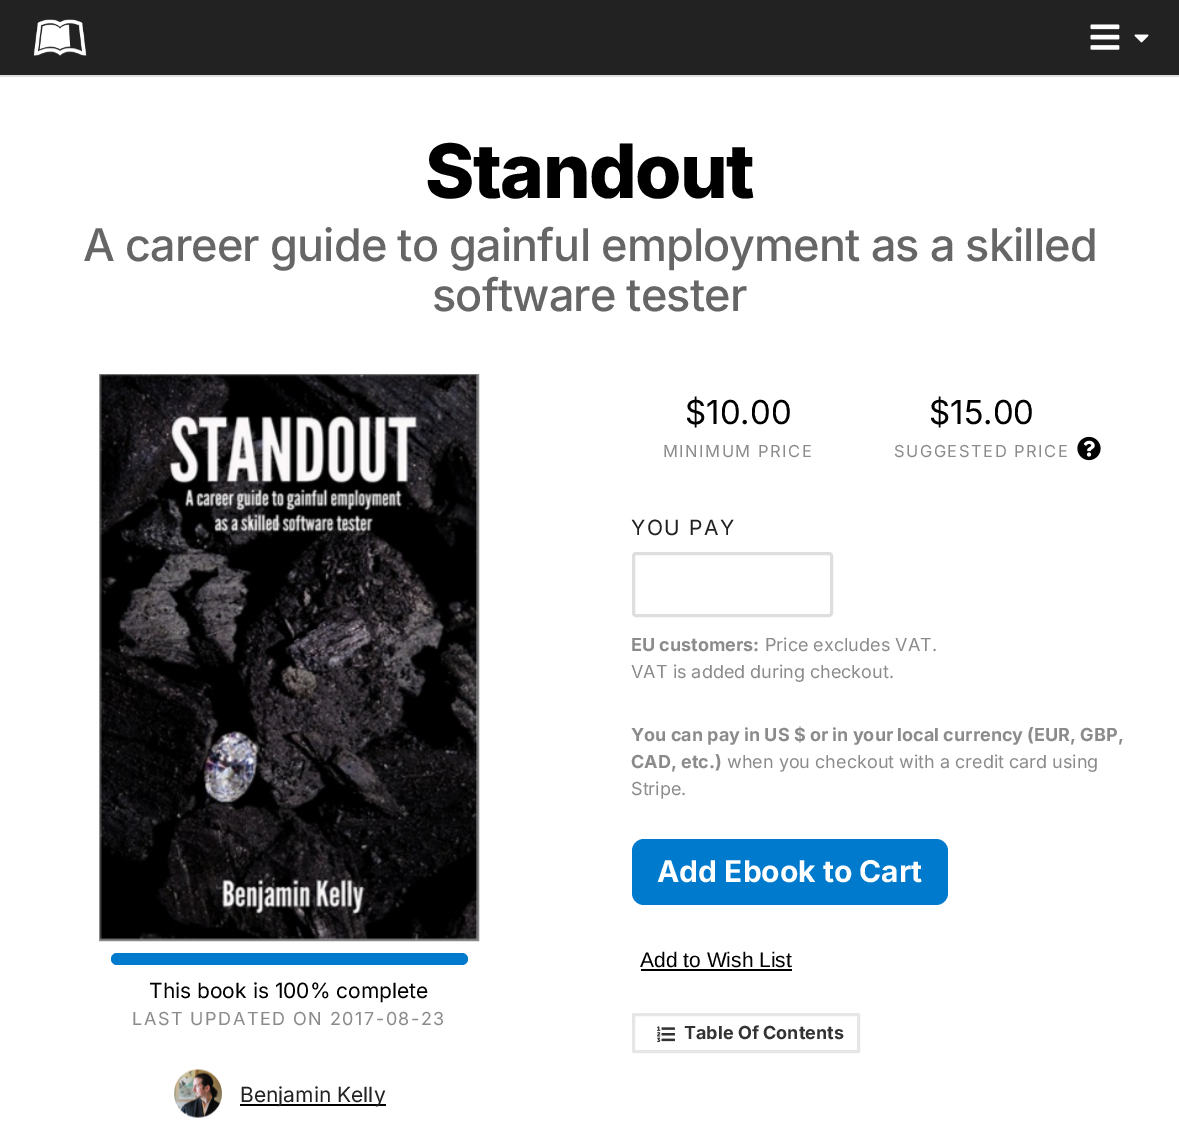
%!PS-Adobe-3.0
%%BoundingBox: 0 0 1179 1133
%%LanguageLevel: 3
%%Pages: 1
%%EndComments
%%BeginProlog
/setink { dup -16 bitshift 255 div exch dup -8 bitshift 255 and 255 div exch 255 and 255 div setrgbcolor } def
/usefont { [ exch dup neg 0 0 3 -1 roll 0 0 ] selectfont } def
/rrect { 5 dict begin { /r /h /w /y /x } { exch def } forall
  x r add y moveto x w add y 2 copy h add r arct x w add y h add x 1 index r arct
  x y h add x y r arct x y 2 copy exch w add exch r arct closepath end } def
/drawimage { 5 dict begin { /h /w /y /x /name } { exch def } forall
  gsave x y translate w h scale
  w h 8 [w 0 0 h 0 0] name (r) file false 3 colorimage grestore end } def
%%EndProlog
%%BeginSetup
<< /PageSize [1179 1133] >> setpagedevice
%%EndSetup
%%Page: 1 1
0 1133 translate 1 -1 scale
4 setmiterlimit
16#222222 setink
0 0 1179 1133 rectfill
(img1.raw) 33 19 54 38 drawimage
(img2.raw) 1090 24 30 26 drawimage
(img3.raw) 1134 34 15 9 drawimage
16#FFFFFF setink
0 77 1179 1056 rectfill
16#DEDEDE setink
0 75 1179 2 rectfill
/Inter-ExtraBold 75 usefont
16#000000 setink
425 198 moveto -1.5 0 (Standout) ashow
/Inter-Medium 45 usefont
16#666666 setink
83 261 moveto -0.9 0 (A career guide to gainful employment as a skilled) ashow
432 311 moveto -0.9 0 (software tester) ashow
16#8B8B8B setink
2 setlinewidth
100 375 378 565 rectstroke
(img4.raw) 100 374 378 566 drawimage
16#007ACD setink
111 953 357 12 6 rrect fill
/Inter-Regular 21 usefont
16#000000 setink
149 998 moveto (This book is 100% complete) show
/Inter-Regular 18 usefont
16#8B8B8B setink
132 1025 moveto 1.5 0 (LAST UPDATED ON 2017-08-23) ashow
(img5.raw) 174 1069 48 49 drawimage
16#000000 setink
240 1104 146 2 rectfill
/Inter-Regular 21 usefont
16#222222 setink
240 1102 moveto (Benjamin Kelly) show
/Inter-Regular 33 usefont
16#000000 setink
685 424 moveto ($10.00) show
/Inter-Regular 16.5 usefont
16#8B8B8B setink
663 457 moveto 1.5 0 (MINIMUM PRICE) ashow
/Inter-Regular 33 usefont
16#000000 setink
929 424 moveto ($15.00) show
/Inter-Regular 16.5 usefont
16#8B8B8B setink
894 457 moveto 1.5 0 (SUGGESTED PRICE) ashow
(img6.raw) 1077 436 24 25 drawimage
/Inter-Regular 21 usefont
16#222222 setink
631 535 moveto 1.5 0 (YOU PAY) ashow
16#DEDEDE setink
3 setlinewidth
633.5 553.5 198 62 2.5 rrect stroke
/Inter-Bold 18 usefont
16#8B8B8B setink
631 651 moveto (EU customers:) show
/Inter-Regular 18 usefont
765 651 moveto (Price excludes VAT.) show
631 678 moveto (VAT is added during checkout.) show
/Inter-Bold 18 usefont
631 741 moveto (You can pay in US $ or in your local currency \(EUR, GBP,) show
631 768 moveto (CAD, etc.\)) show
/Inter-Regular 18 usefont
727 768 moveto (when you checkout with a credit card using) show
631 795 moveto (Stripe.) show
16#007ACD setink
632 839 316 66 12 rrect fill
/Inter-Bold 30 usefont
16#FFFFFF setink
657 882 moveto (Add Ebook to Cart) show
/LiberationSans-Regular 21 usefont
16#000000 setink
640 967 moveto (Add to Wish List) show
641 969 151 2 rectfill
16#E6E6E6 setink
633.5 1014.5 225 37 0.5 rrect stroke
(img7.raw) 657 1026 18 17 drawimage
/Inter-Bold 18 usefont
16#333333 setink
684 1039 moveto (Table Of Contents) show
showpage
%%EOF
